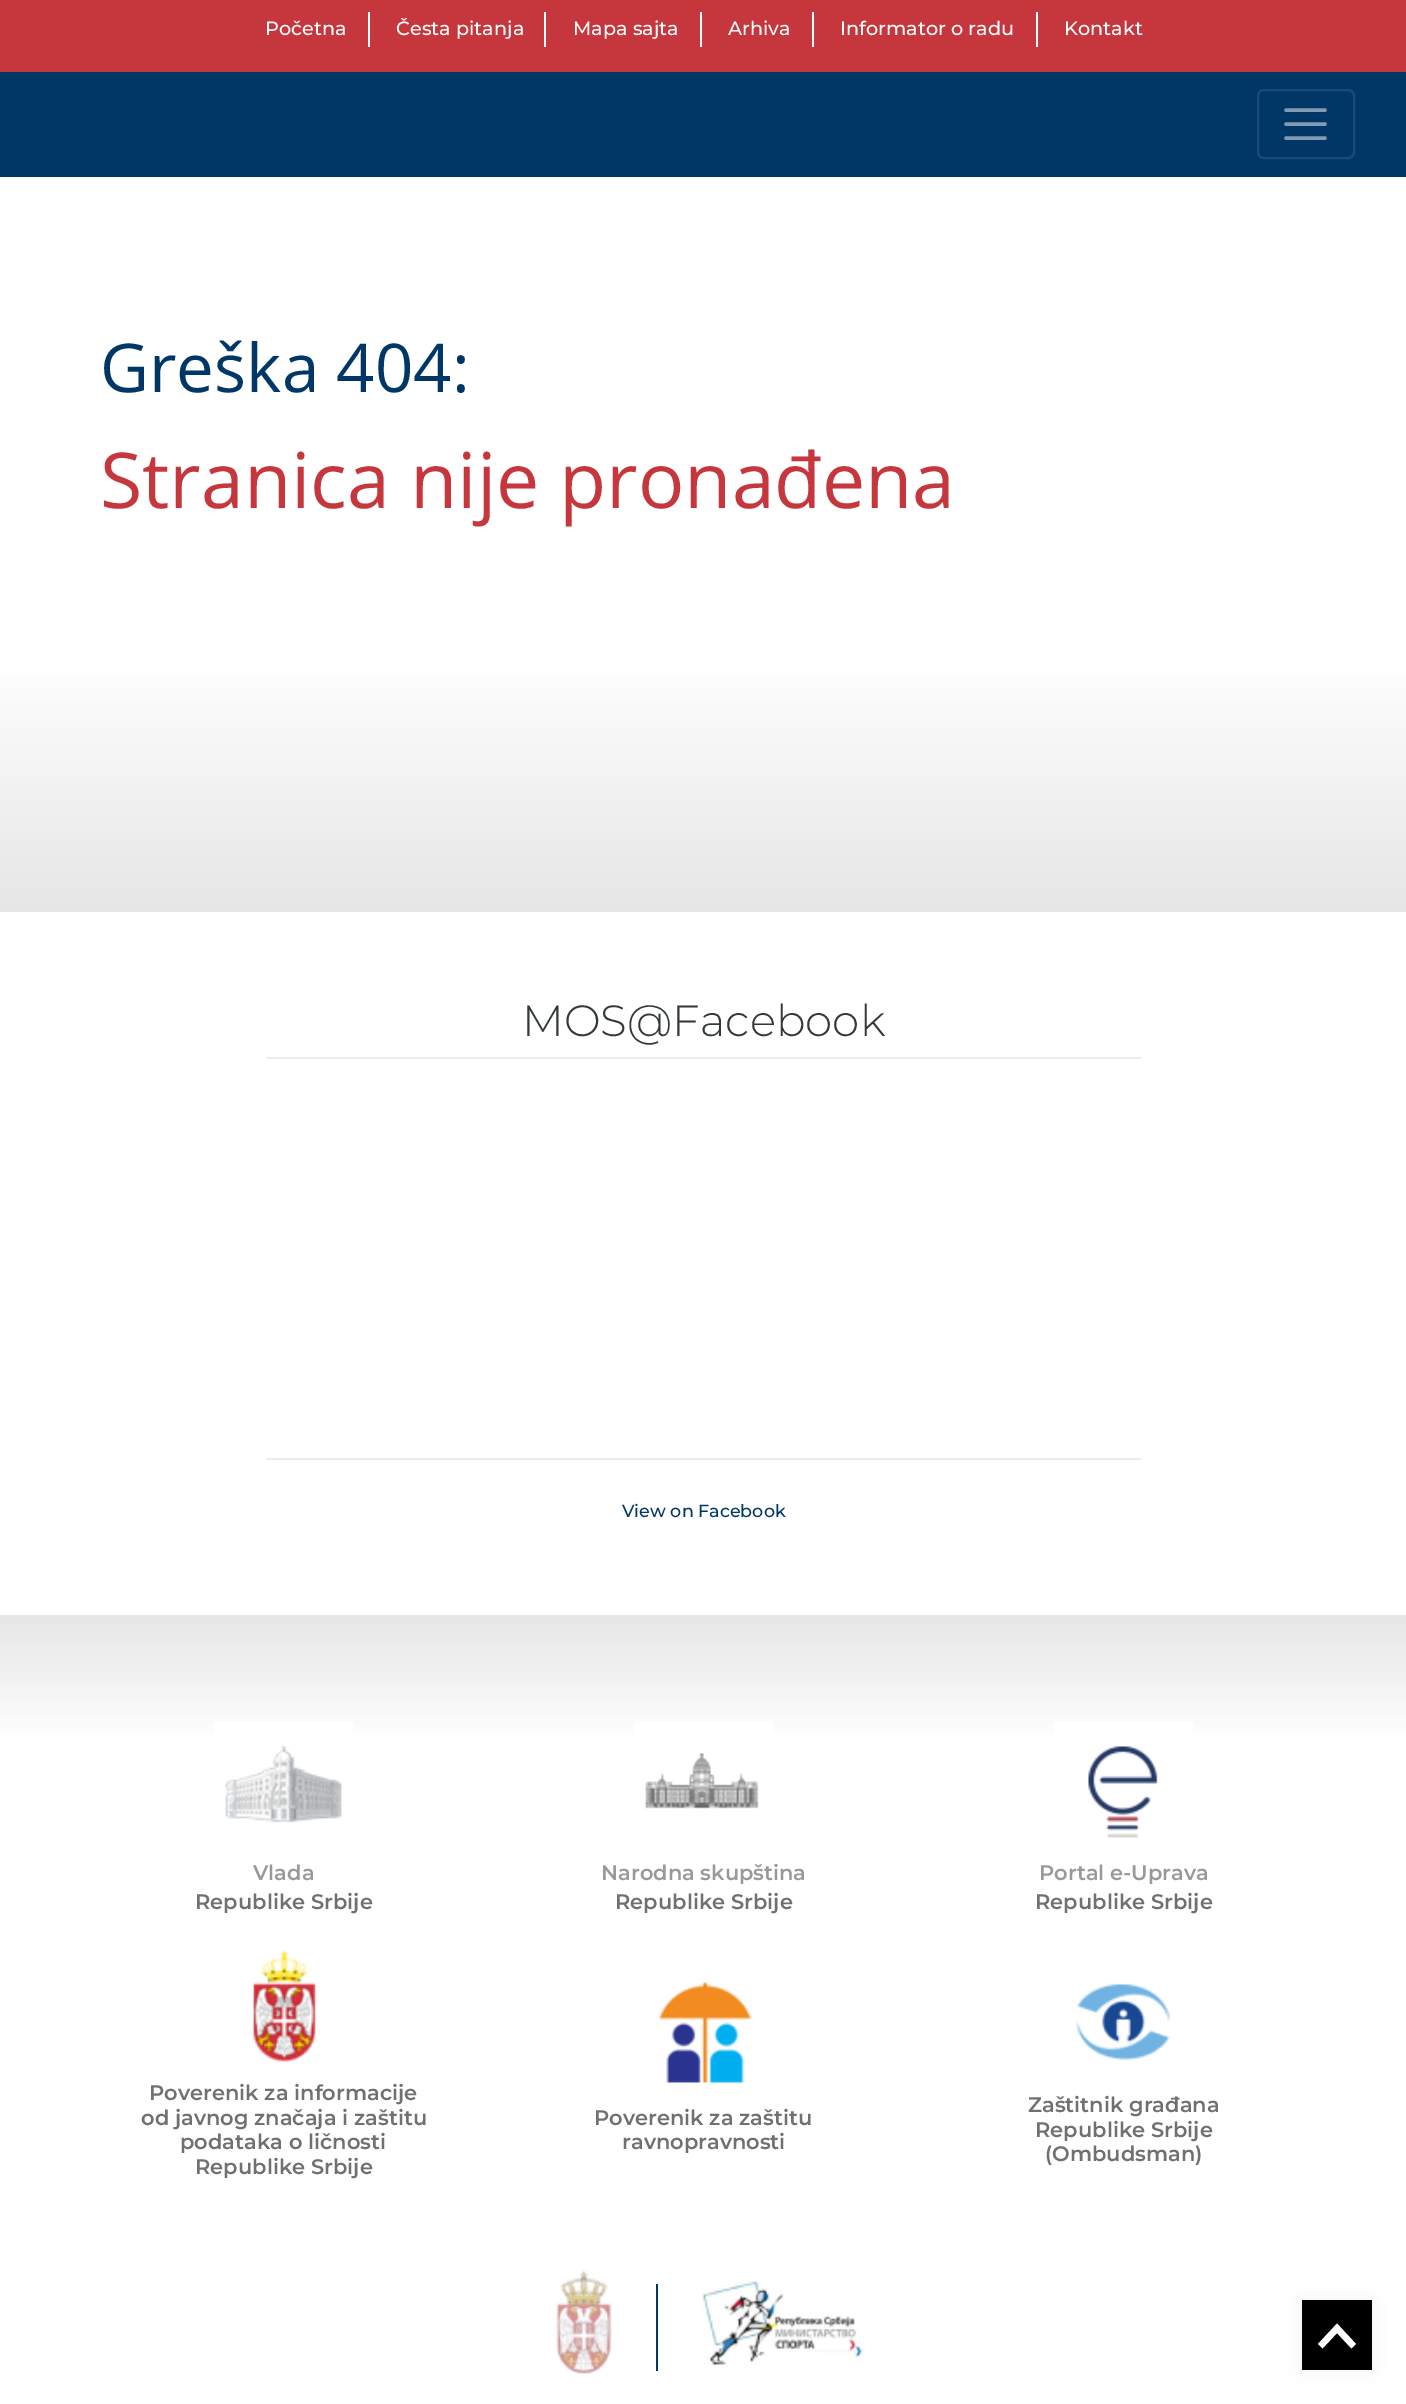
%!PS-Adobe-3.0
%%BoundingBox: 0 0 1406 2404
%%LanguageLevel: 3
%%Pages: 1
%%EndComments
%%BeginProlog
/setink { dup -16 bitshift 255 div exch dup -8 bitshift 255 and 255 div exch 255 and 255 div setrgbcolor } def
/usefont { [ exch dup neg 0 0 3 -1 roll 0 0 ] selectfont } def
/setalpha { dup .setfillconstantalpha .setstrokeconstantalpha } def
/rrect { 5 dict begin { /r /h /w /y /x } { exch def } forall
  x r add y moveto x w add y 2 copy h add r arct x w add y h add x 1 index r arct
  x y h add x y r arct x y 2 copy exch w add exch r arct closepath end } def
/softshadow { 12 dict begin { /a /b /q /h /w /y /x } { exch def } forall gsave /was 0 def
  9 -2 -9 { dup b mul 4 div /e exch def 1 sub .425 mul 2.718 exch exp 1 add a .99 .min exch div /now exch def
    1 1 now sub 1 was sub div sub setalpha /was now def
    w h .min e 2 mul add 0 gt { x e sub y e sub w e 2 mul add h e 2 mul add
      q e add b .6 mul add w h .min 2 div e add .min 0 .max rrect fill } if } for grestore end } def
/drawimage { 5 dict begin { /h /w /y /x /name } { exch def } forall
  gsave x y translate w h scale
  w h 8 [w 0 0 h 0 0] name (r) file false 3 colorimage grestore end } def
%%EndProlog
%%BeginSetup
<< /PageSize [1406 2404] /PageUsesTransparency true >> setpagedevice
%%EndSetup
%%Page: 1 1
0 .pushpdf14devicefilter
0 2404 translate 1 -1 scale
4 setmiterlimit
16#FFFFFF setink
0 0 1406 2404 rectfill
16#C6363D setink
0 0 1406 72 rectfill
/Montserrat-Medium 19.25 usefont
16#FFFFFF setink
265 35 moveto (Početna) show
368 12 2 35 rectfill
396 35 moveto (Česta pitanja) show
544 12 2 35 rectfill
573 35 moveto (Mapa sajta) show
700 12 2 35 rectfill
728 35 moveto (Arhiva) show
812 12 2 35 rectfill
840 35 moveto (Informator o radu) show
1036 12 2 35 rectfill
1064 35 moveto (Kontakt) show
16#013767 setink
0 72 1406 105 rectfill
16#1A4B76 setink
2 setlinewidth
1258 90 96 68 6 rrect stroke
16#809BB3 setink
3.5 setlinewidth
1 setlinecap
1286 110 moveto 1325 110 lineto 1286 124 moveto 1325 124 lineto 1286 138 moveto 1325 138 lineto stroke
/OpenSans-Regular 67.25 usefont
16#013767 setink
100 392 moveto (Greška 404:) show
/OpenSans-Regular 77 usefont
16#C6363D setink
100 508 moveto (Stranica nije pronađena) show
gsave 0 675 moveto 1406 675 lineto 1406 912 lineto 0 912 lineto closepath clip newpath
<< /ShadingType 2 /ColorSpace /DeviceRGB /Coords [704 912 704 649] /Extend [true true] /Function << /FunctionType 2 /Domain [0 1] /C0 [0.902 0.902 0.902] /C1 [1 1 1] /N 1 >> >> shfill grestore
/Montserrat-Light 43.75 usefont
16#32383B setink
522 1036 moveto (MOS@Facebook) show
16#E9EDF0 setink
266 1057 875 2 rectfill
266 1458 875 2 rectfill
/Montserrat-Medium 17.5 usefont
16#013767 setink
622 1517 moveto (View on Facebook) show
gsave 0 1615 moveto 1406 1615 lineto 1406 1734 lineto 0 1734 lineto closepath clip newpath
<< /ShadingType 2 /ColorSpace /DeviceRGB /Coords [704 1615 704 1747] /Extend [true true] /Function << /FunctionType 2 /Domain [0 1] /C0 [0.902 0.902 0.902] /C1 [1 1 1] /N 1 >> >> shfill grestore
(img1.raw) 214 1721 139 102 drawimage
/Montserrat-SemiBold 21 usefont
16#999999 setink
253 1880 moveto (Vlada) show
16#707070 setink
195 1909 moveto (Republike Srbije) show
(img2.raw) 634 1721 139 88 drawimage
16#999999 setink
601 1880 moveto (Narodna skupština) show
16#707070 setink
615 1909 moveto (Republike Srbije) show
(img3.raw) 1054 1721 139 117 drawimage
16#999999 setink
1039 1880 moveto (Portal e-Uprava) show
16#707070 setink
1035 1909 moveto (Republike Srbije) show
(img4.raw) 253 1950 63 112 drawimage
[
    [(Poverenik za informacije) 149 2100]
    [(od javnog značaja i zaštitu) 141 2125]
    [(podataka o ličnosti) 180 2149]
    [(Republike Srbije) 195 2174]
] { aload pop moveto show } forall
(img5.raw) 659 1982 93 101 drawimage
594 2125 moveto (Poverenik za zaštitu) show
622 2149 moveto (ravnopravnosti) show
(img6.raw) 1076 1984 95 77 drawimage
[
    [(Zaštitnik građana) 1028 2112]
    [(Republike Srbije) 1035 2137]
    [(\(Ombudsman\)) 1045 2161]
] { aload pop moveto show } forall
(img7.raw) 556 2271 56 103 drawimage
16#013767 setink
656 2284 2 87 rectfill
(img8.raw) 702 2280 160 86 drawimage
16#000000 setink
1302 2300 70 70 0 9 0.05 softshadow
1302 2300 70 70 rectfill
16#FFFFFF setink
1322.5 2348.5 moveto 1337 2333 lineto 1351.5 2348.5 lineto 1356 2344 lineto 1337 2323.5 lineto 1318 2344 lineto closepath fill
.poppdf14devicefilter showpage
%%EOF
